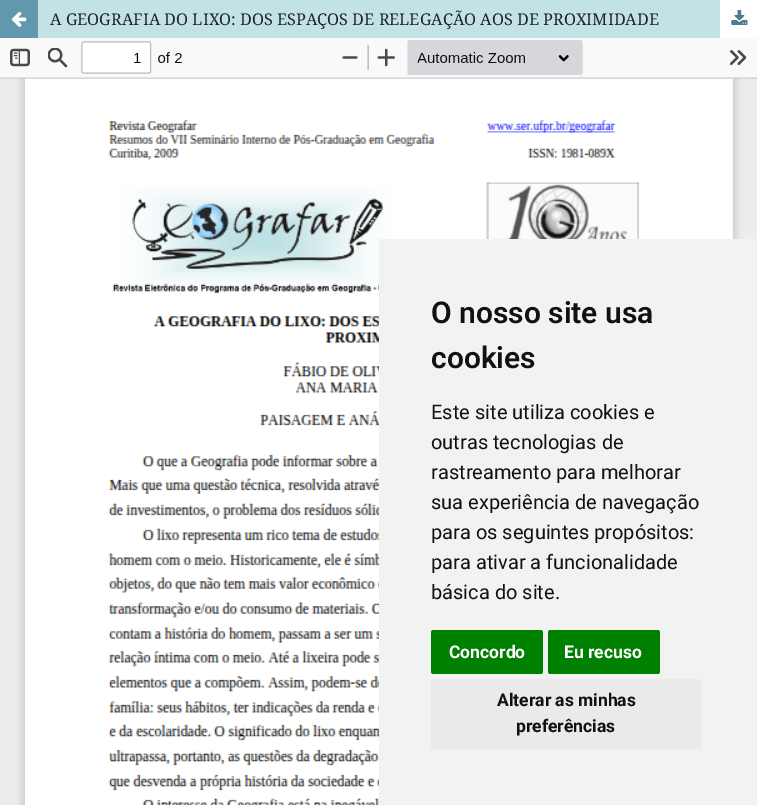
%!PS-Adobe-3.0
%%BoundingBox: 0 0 757 805
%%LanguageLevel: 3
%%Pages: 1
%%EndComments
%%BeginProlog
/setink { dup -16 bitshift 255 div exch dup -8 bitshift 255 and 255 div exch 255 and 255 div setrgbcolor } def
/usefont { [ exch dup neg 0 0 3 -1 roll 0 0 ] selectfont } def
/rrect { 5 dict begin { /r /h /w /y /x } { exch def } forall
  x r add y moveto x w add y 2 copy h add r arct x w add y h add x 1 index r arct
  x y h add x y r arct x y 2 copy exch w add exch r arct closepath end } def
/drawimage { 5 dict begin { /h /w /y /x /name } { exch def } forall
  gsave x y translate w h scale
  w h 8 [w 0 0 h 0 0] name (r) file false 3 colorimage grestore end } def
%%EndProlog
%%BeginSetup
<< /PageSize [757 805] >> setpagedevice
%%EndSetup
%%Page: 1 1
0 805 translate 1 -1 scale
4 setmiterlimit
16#FFFFFF setink
0 0 757 805 rectfill
16#C3E2E6 setink
38 0 682 38 rectfill
16#6298AE setink
0 0 38 38 rectfill
(img1.raw) 11 11 16 16 drawimage
/NotoSerif-Regular 16.25 usefont
16#1F2425 setink
50 25 moveto (A GEOGRAFIA DO LIXO: DOS ESPAÇOS DE RELEGAÇÃO AOS DE PROXIMIDADE) show
(img2.raw) 731 10 17 15 drawimage
(img3.raw) 0 38 757 767 drawimage
16#F2F2F2 setink
379 239 378 566 rectfill
/Roboto-SemiBold 30 usefont
16#111111 setink
431 323 moveto (O nosso site usa) show
431 368 moveto (cookies) show
/Roboto-Regular 20 usefont
[
    [(Este site utiliza cookies e) 431 419]
    [(outras tecnologias de) 431 449]
    [(rastreamento para melhorar) 431 479]
    [(sua experiência de navegação) 431 509]
    [(para os seguintes propósitos:) 431 539]
    [(para ativar a funcionalidade) 431 569]
    [(básica do site.) 431 599]
] { aload pop moveto show } forall
16#008000 setink
431 630 112 44 2.5 rrect fill
/Roboto-Bold 17.5 usefont
16#FFFFFF setink
449 658 moveto (Concordo) show
16#008000 setink
548 630 112 44 2.5 rrect fill
16#FFFFFF setink
564 658 moveto (Eu recuso) show
16#EAEAEA setink
431 679 270 70 2.5 rrect fill
16#111111 setink
497 706 moveto (Alterar as minhas) show
516 732 moveto (preferências) show
showpage
%%EOF
